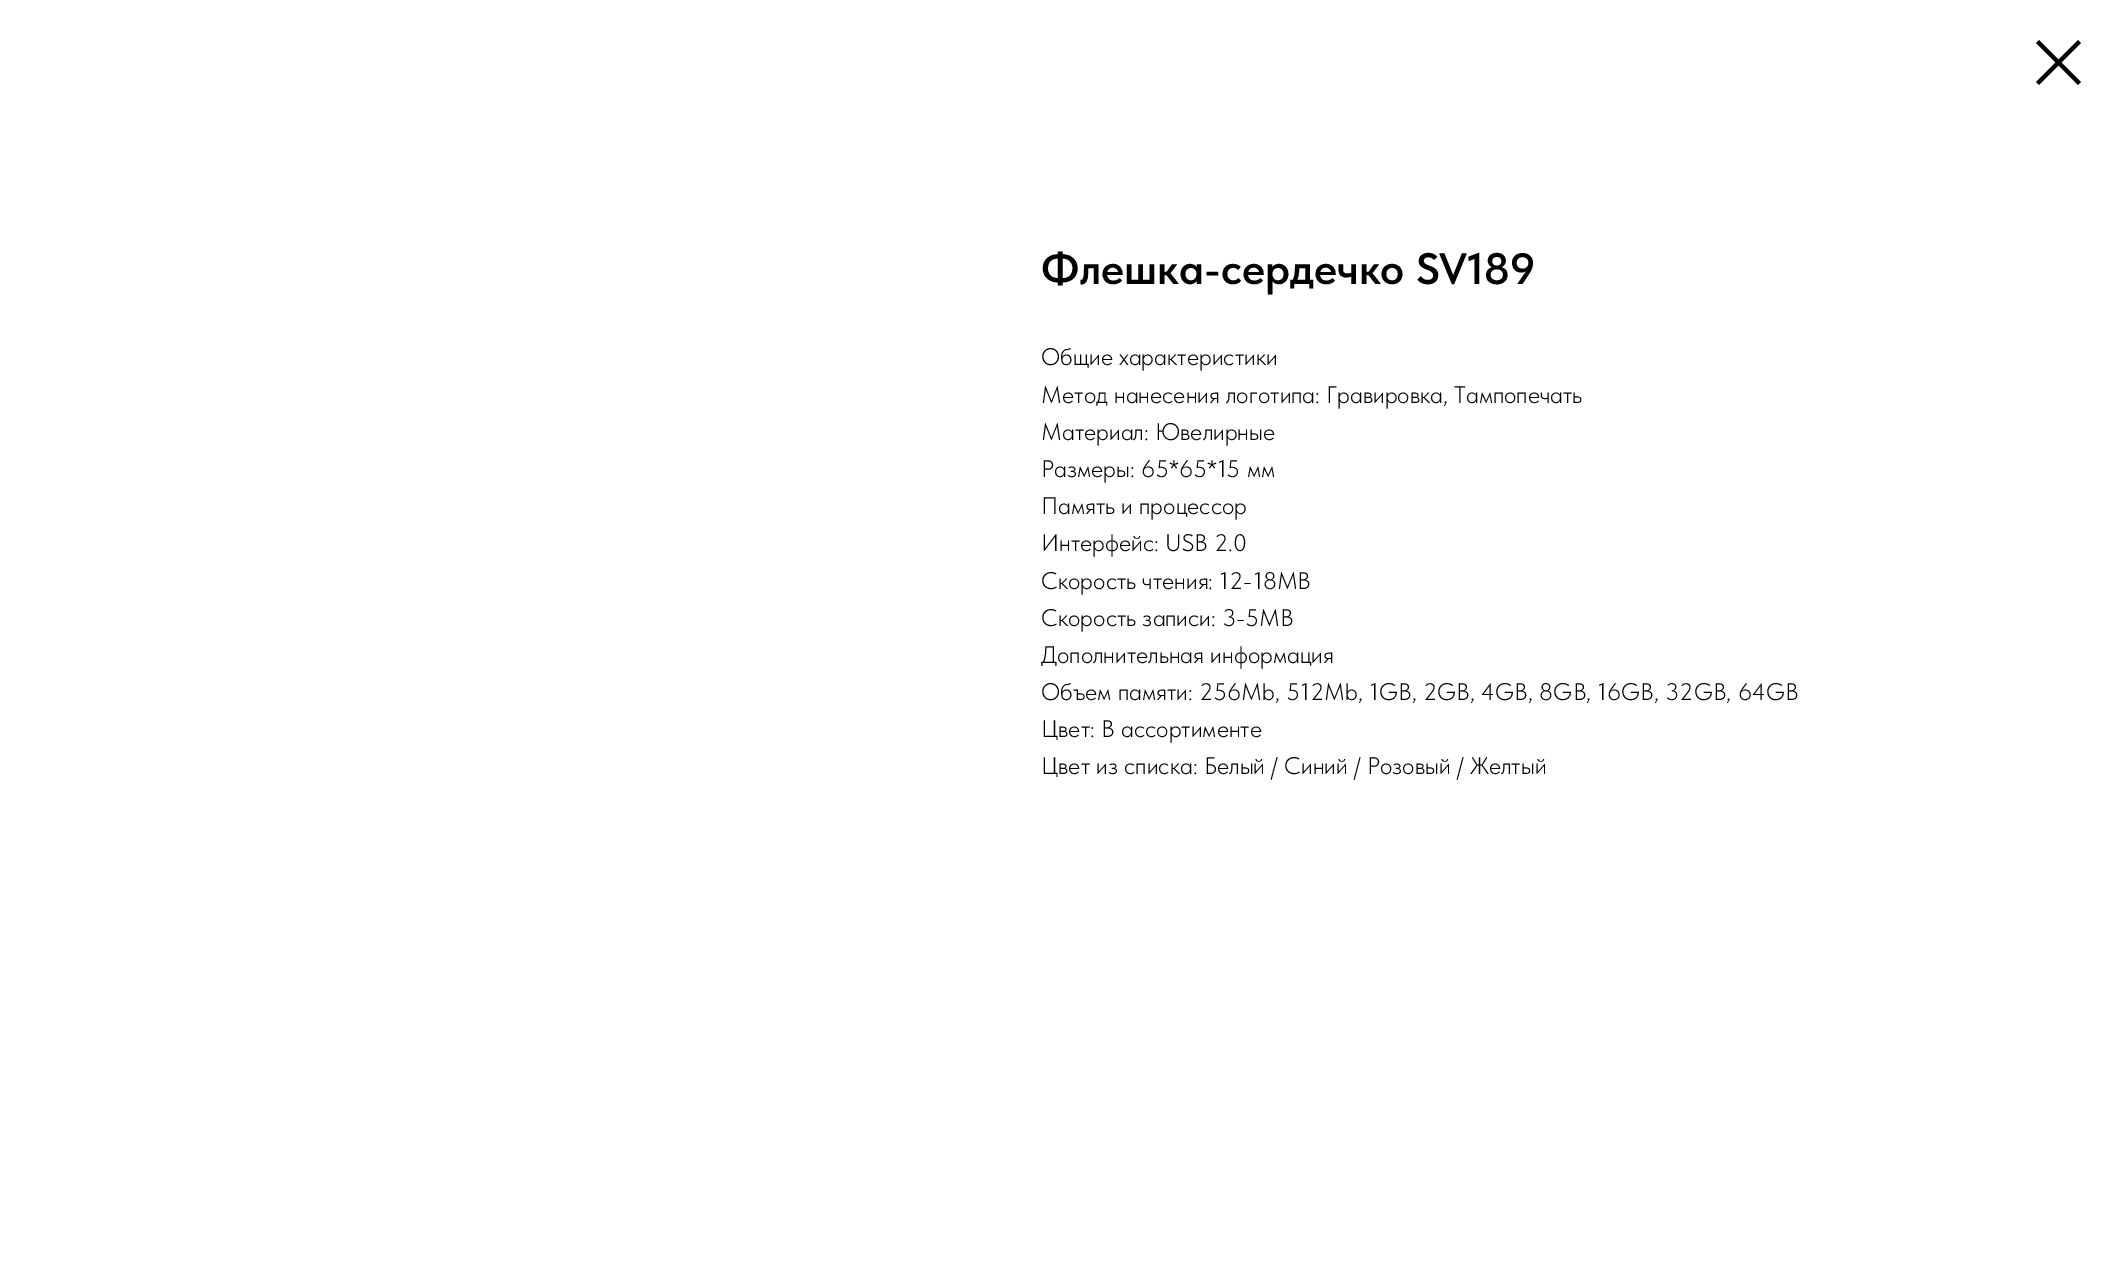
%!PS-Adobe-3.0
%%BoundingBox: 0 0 2121 1266
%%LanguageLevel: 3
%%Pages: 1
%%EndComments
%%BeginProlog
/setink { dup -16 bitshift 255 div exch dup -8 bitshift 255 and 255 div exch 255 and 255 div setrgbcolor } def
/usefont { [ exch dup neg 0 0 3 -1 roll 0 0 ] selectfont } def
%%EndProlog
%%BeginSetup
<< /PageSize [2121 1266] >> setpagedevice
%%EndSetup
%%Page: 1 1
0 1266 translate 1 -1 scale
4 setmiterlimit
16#FFFFFF setink
0 0 2121 1266 rectfill
16#000000 setink
2036 43 moveto 2039 40 lineto 2081 82 lineto 2078 85 lineto closepath eofill
2078 40 moveto 2081 43 lineto 2039 85 lineto 2036 82 lineto closepath eofill
/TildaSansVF-SemiBold 44 usefont
1041 284 moveto (Флешка-сердечко SV189) show
/TildaSansVF-Light 24 usefont
[
    [(Общие характеристики) 1041 365]
    [(Метод нанесения логотипа: Гравировка, Тампопечать) 1041 403]
    [(Материал: Ювелирные) 1041 440]
    [(Размеры: 65*65*15 мм) 1041 477]
    [(Память и процессор) 1041 514]
    [(Интерфейс: USB 2.0) 1041 551]
    [(Скорость чтения: 12-18MB) 1041 589]
    [(Скорость записи: 3-5MB) 1041 626]
    [(Дополнительная информация) 1041 663]
    [(Объем памяти: 256Mb, 512Mb, 1GB, 2GB, 4GB, 8GB, 16GB, 32GB, 64GB) 1041 700]
    [(Цвет: В ассортименте) 1041 737]
    [(Цвет из списка: Белый / Синий / Розовый / Желтый) 1041 774]
] { aload pop moveto show } forall
showpage
%%EOF
